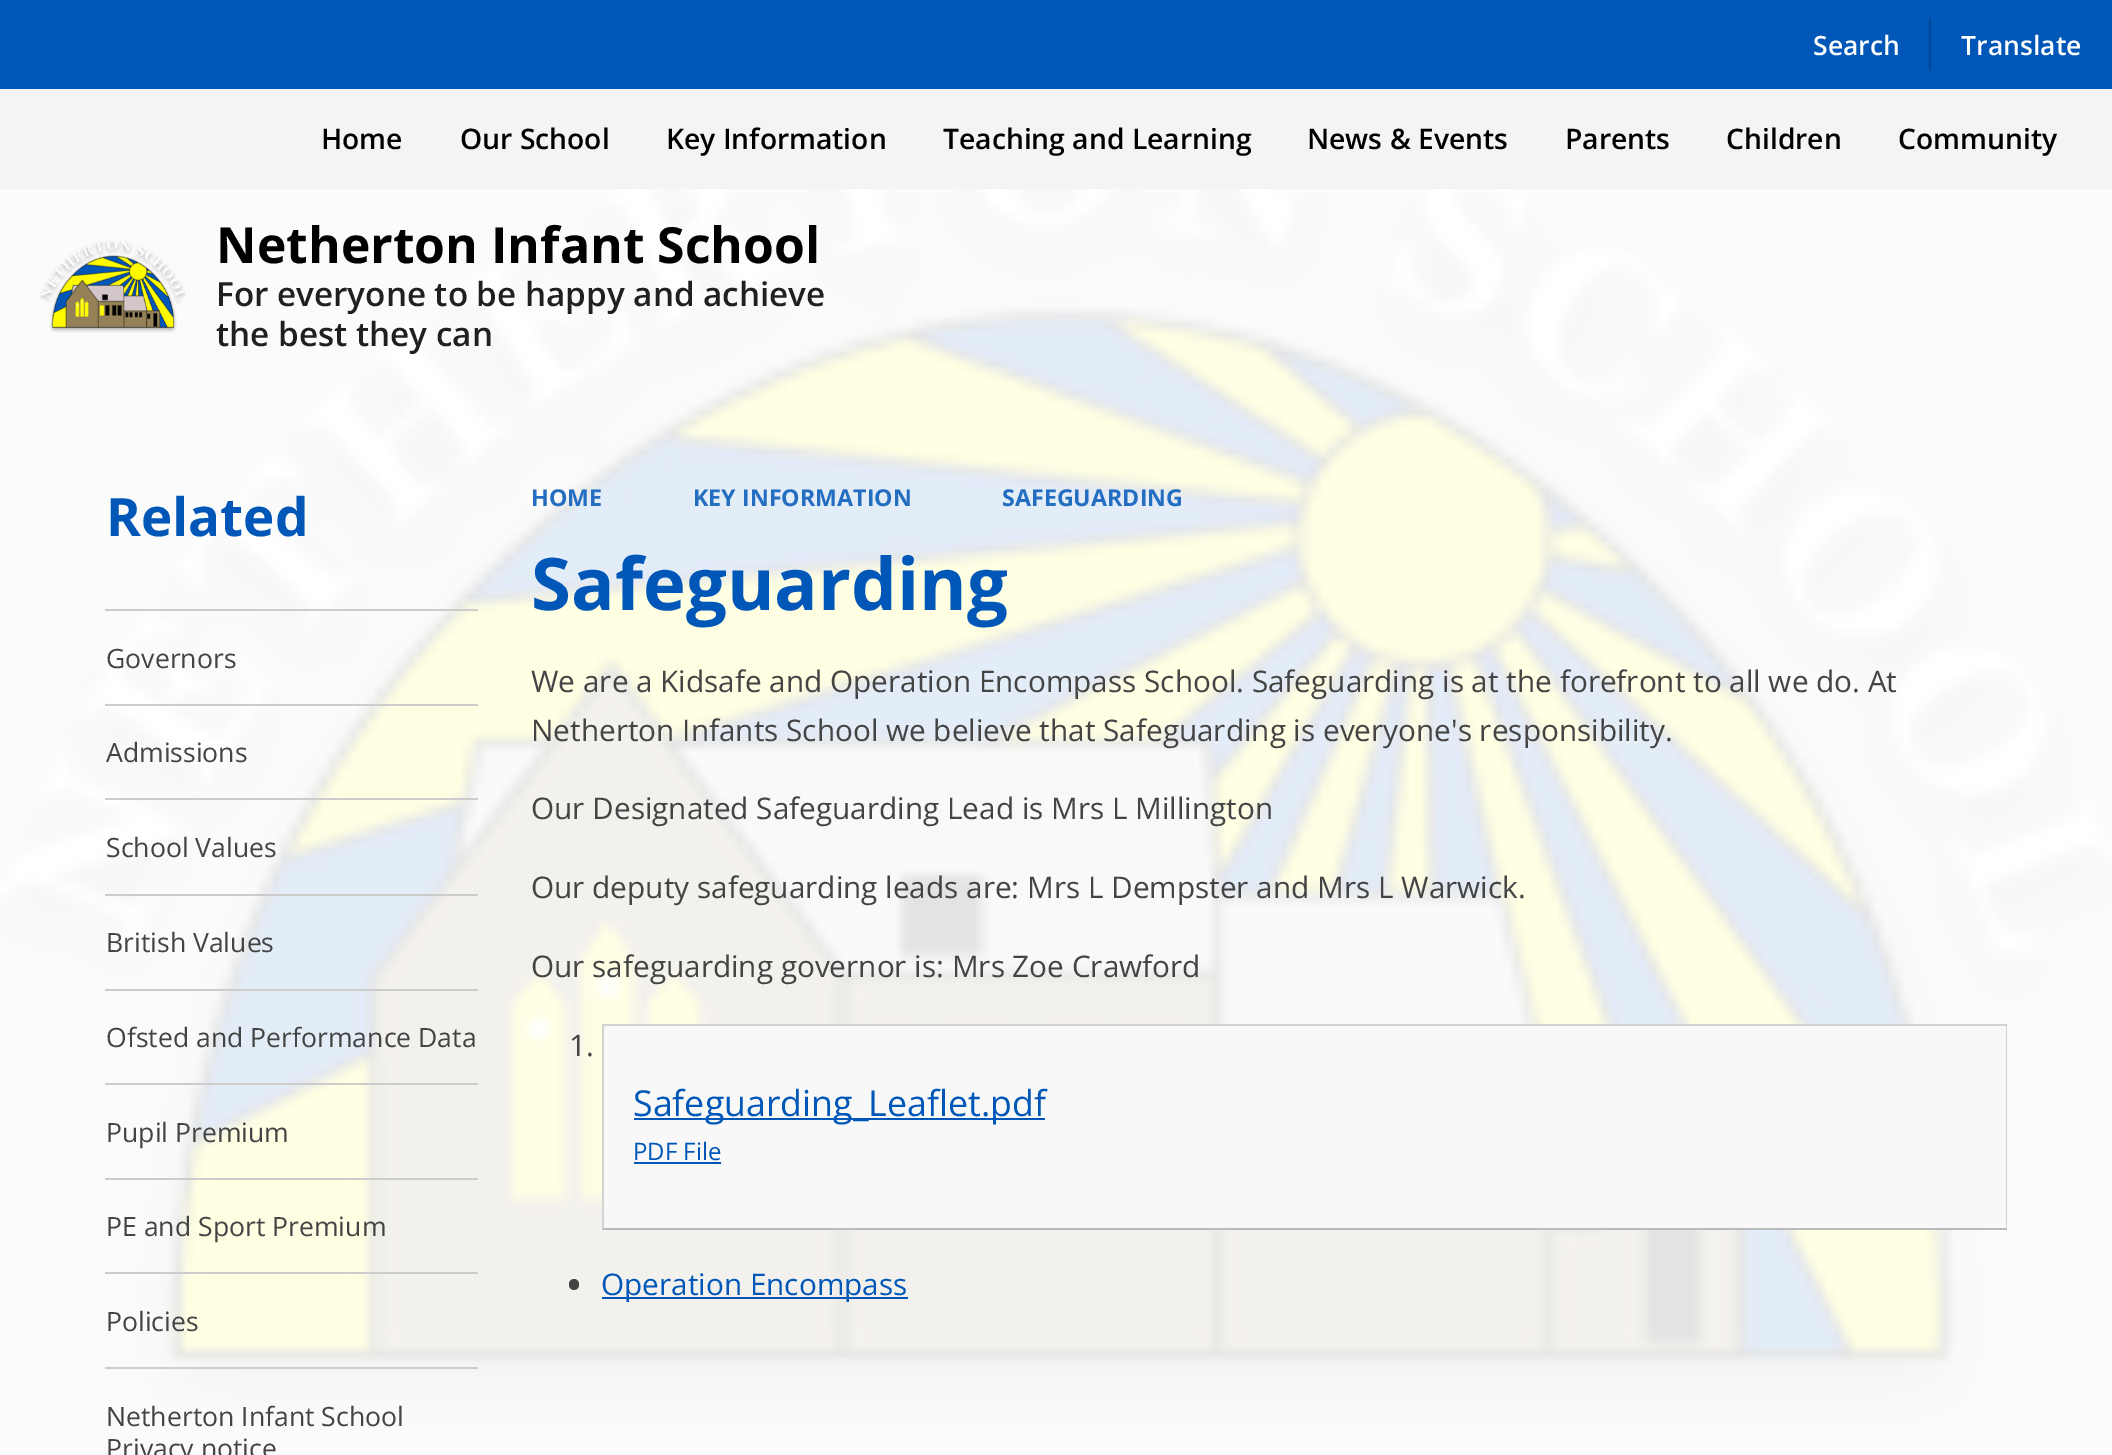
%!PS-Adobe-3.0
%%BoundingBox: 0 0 2112 1455
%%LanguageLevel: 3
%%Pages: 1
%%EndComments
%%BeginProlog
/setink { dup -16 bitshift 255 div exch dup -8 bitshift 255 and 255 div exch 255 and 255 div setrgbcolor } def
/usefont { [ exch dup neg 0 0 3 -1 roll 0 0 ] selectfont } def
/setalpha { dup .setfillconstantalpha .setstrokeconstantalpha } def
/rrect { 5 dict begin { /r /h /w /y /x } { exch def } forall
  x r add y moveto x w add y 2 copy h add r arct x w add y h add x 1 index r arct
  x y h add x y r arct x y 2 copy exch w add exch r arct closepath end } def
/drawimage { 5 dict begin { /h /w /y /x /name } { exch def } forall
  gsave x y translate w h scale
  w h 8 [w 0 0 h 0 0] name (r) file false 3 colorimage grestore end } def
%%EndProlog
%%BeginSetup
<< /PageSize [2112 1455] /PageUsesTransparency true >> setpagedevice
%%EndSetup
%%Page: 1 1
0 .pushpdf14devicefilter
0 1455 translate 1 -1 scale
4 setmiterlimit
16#DDDDDD setink
0 0 2112 1455 rectfill
16#0057B8 setink
0 0 2112 89 rectfill
/OpenSans-SemiBold 26.6 usefont
16#FFFFFF setink
1813 55 moveto (Search) show
16#004693 setink
1929 19 2 51 rectfill
16#FFFFFF setink
1961 55 moveto (Translate) show
16#F4F4F4 setink
0 89 2112 100 rectfill
/OpenSans-SemiBold 28.25 usefont
16#000000 setink
[
    [(Home) 321 149]
    [(Our School) 460 149]
    [(Key Information) 666 149]
    [(Teaching and Learning) 943 149]
    [(News & Events) 1307 149]
    [(Parents) 1565 149]
    [(Children) 1726 149]
    [(Community) 1898 149]
] { aload pop moveto show } forall
(img1.raw) 0 189 2112 1241 drawimage
0.89 setalpha
16#FFFFFF setink
0 189 2112 191 rectfill
1 setalpha
(img2.raw) 40 240 146 93 drawimage
/OpenSans-Bold 49.9 usefont
16#000000 setink
216 263 moveto (Netherton Infant School) show
/OpenSans-SemiBold 33.25 usefont
16#202020 setink
216 306 moveto (For everyone to be happy and achieve) show
216 346 moveto (the best they can) show
0.89 setalpha
16#FFFFFF setink
0 380 2112 1075 rectfill
/OpenSans-Bold 53 usefont
1 setalpha
16#0057B8 setink
106 536 moveto (Related) show
16#CCCCCC setink
105 609 373 2 rectfill
/OpenSans-Regular 26.6 usefont
16#444444 setink
106 668 moveto (Governors) show
16#CCCCCC setink
105 704 373 2 rectfill
16#444444 setink
106 762 moveto (Admissions) show
16#CCCCCC setink
105 798 373 2 rectfill
16#444444 setink
106 857 moveto (School Values) show
16#CCCCCC setink
105 894 373 2 rectfill
16#444444 setink
106 952 moveto (British Values) show
16#CCCCCC setink
105 989 373 2 rectfill
16#444444 setink
106 1047 moveto (Ofsted and Performance Data) show
16#CCCCCC setink
105 1083 373 2 rectfill
16#444444 setink
106 1142 moveto (Pupil Premium) show
16#CCCCCC setink
105 1178 373 2 rectfill
16#444444 setink
106 1236 moveto (PE and Sport Premium) show
16#CCCCCC setink
105 1272 373 2 rectfill
16#444444 setink
106 1331 moveto (Policies) show
16#CCCCCC setink
105 1367 373 2 rectfill
16#444444 setink
106 1426 moveto (Netherton Infant School) show
106 1458 moveto (Privacy notice) show
/OpenSans-Bold 23.25 usefont
16#246EC1 setink
[
    [(HOME) 531 506]
    [(KEY INFORMATION) 693 506]
    [(SAFEGUARDING) 1002 506]
] { aload pop moveto show } forall
/OpenSans-Bold 72.5 usefont
16#0057B8 setink
531 610 moveto (Safeguarding) show
/OpenSans-Regular 29.75 usefont
16#444444 setink
[
    [(We are a Kidsafe and Operation Encompass School. Safeguarding is at the forefront to all we do. At) 531 692]
    [(Netherton Infants School we believe that Safeguarding is everyone's responsibility.) 531 741]
    [(Our Designated Safeguarding Lead is Mrs L Millington) 531 819]
    [(Our deputy safeguarding leads are: Mrs L Dempster and Mrs L Warwick.) 531 898]
    [(Our safeguarding governor is: Mrs Zoe Crawford) 531 977]
    [(1.) 569 1056]
] { aload pop moveto show } forall
16#F8F8F8 setink
602 1024 1405 206 rectfill
16#D3D3D3 setink
602 1024 moveto 2007 1024 lineto 2006 1026 lineto 604 1026 lineto closepath fill
0.15 setalpha
16#000000 setink
2007 1024 moveto 2007 1230 lineto 2006 1228 lineto 2006 1026 lineto closepath fill
0.25 setalpha
2007 1230 moveto 602 1230 lineto 604 1228 lineto 2006 1228 lineto closepath fill
0.15 setalpha
602 1230 moveto 602 1024 lineto 604 1026 lineto 604 1228 lineto closepath fill
1 setalpha
16#0057B8 setink
634 1118 411 2 rectfill
/OpenSans-Regular 35.75 usefont
633 1116 moveto (Safeguarding_Leaflet.pdf) show
/OpenSans-Regular 24 usefont
633 1160 moveto (PDF File) show
634 1162 87 2 rectfill
16#444444 setink
569 1279 10 11 5 rrect fill
16#0057B8 setink
602 1297 306 2 rectfill
/OpenSans-Regular 29.75 usefont
601 1295 moveto (Operation Encompass) show
.poppdf14devicefilter showpage
%%EOF
